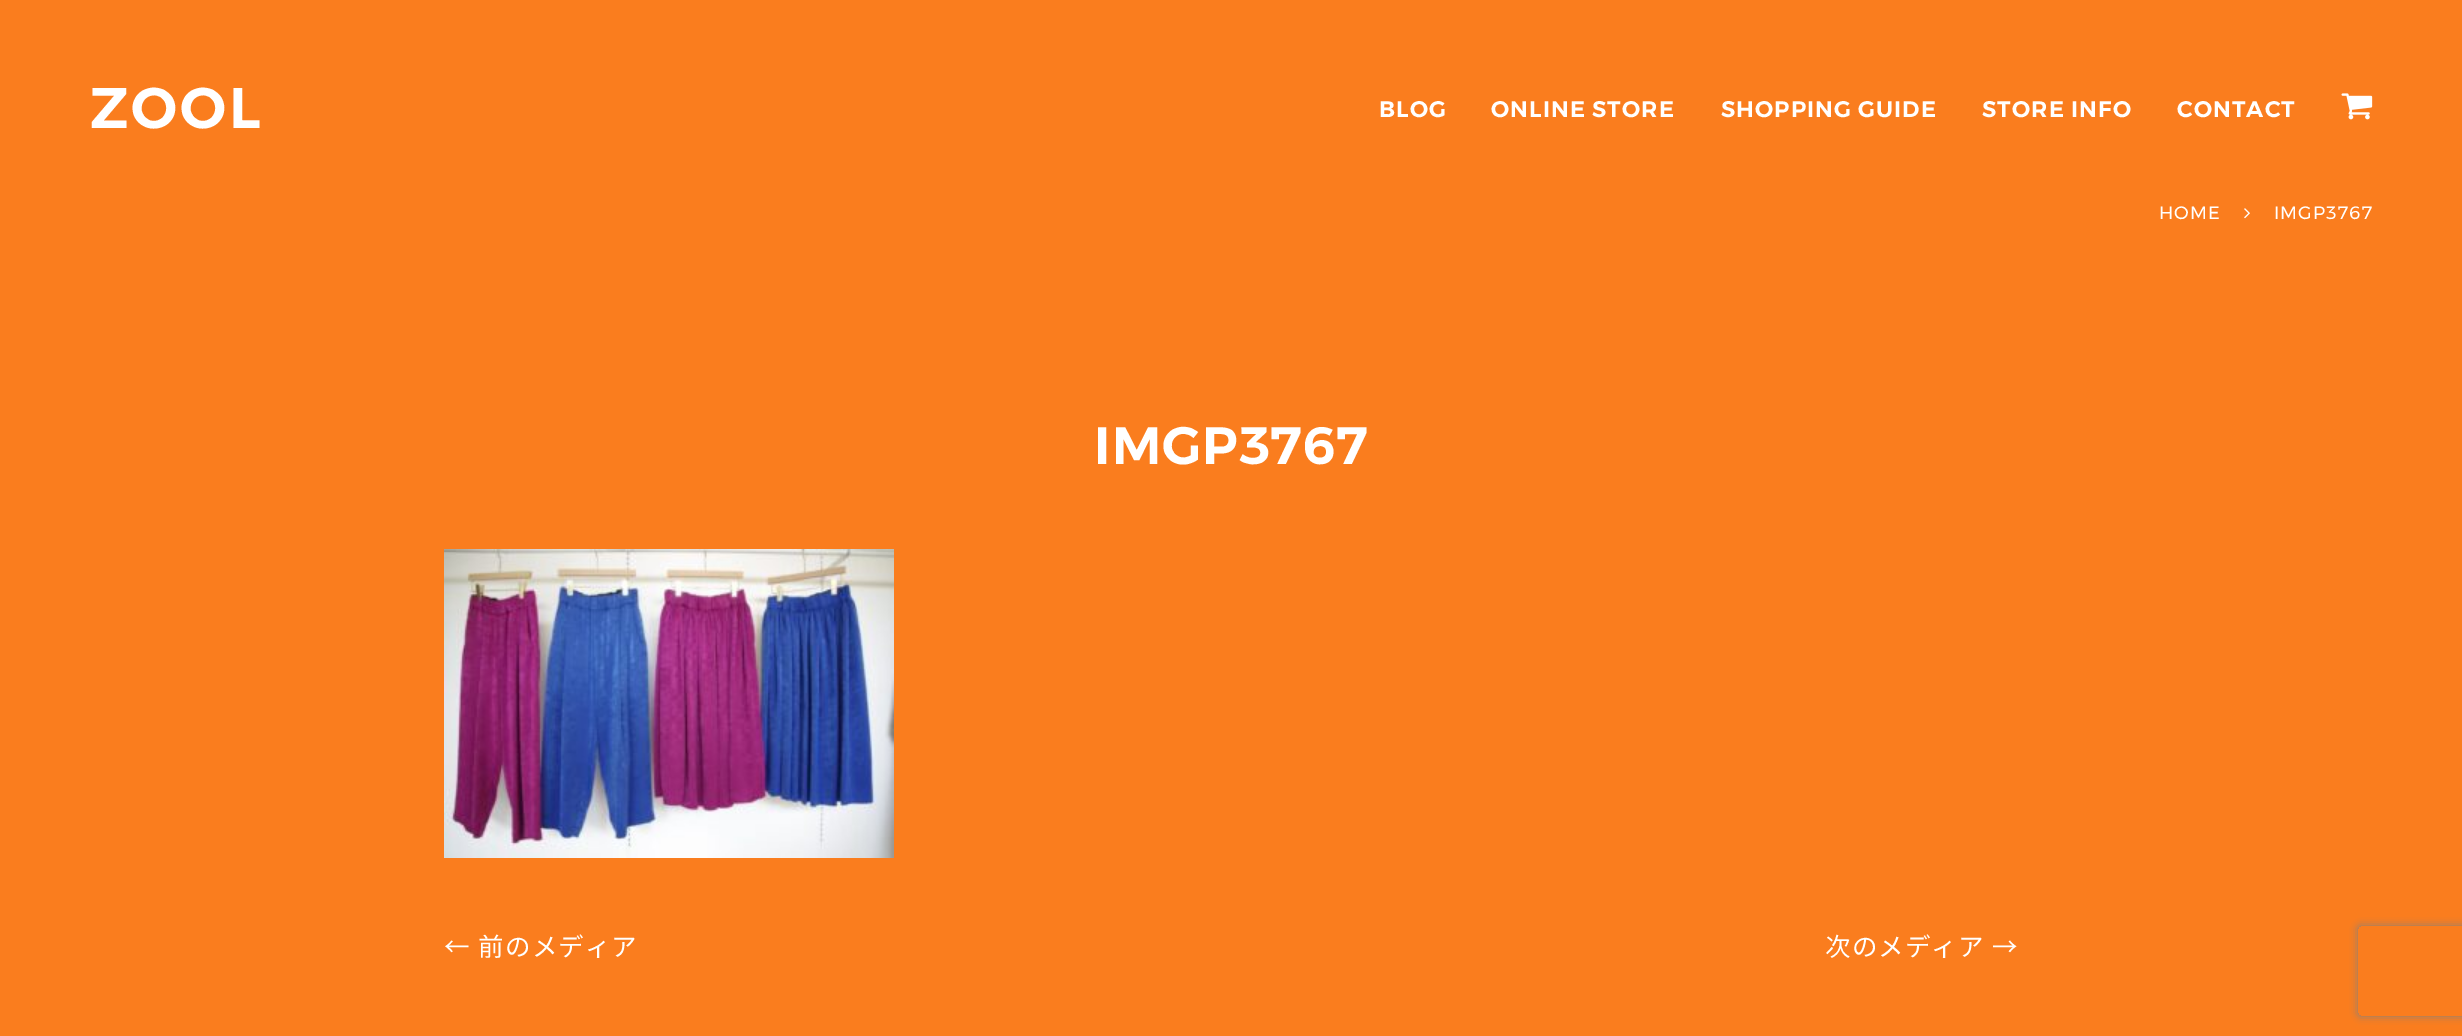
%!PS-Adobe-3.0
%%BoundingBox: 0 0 2462 1036
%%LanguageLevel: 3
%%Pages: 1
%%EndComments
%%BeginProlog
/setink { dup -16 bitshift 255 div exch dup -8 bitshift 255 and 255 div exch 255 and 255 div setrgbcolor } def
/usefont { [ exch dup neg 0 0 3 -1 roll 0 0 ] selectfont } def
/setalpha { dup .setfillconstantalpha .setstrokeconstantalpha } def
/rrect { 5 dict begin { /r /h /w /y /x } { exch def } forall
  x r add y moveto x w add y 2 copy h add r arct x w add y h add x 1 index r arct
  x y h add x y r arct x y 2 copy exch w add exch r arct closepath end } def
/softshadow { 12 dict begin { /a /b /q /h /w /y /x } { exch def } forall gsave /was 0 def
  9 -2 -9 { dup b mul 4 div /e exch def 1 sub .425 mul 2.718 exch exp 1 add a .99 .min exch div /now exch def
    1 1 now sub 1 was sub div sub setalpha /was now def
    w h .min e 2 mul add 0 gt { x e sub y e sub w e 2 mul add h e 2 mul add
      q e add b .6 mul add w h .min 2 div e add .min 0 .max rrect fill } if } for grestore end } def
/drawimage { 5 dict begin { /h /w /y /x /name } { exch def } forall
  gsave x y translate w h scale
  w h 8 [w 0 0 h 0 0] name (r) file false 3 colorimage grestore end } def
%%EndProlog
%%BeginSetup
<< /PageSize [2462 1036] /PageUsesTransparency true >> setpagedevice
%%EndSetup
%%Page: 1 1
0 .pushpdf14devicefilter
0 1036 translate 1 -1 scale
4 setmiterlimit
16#FA7D1E setink
0 0 2462 1036 rectfill
/Montserrat-SemiBold 57 usefont
16#FFFFFF setink
90 128 moveto 3 0 (ZOOL) ashow
/Montserrat-SemiBold 22.5 usefont
1379 117 moveto 1.1 0 (BLOG) ashow
1491 117 moveto 1.1 0 (ONLINE STORE) ashow
1721 117 moveto 1.1 0 (SHOPPING GUIDE) ashow
1982 117 moveto 1.1 0 (STORE INFO) ashow
2177 117 moveto 1.1 0 (CONTACT) ashow
(img1.raw) 2341 93 32 27 drawimage
/Montserrat-Regular 18 usefont
2159 219 moveto 1.1 0 (HOME) ashow
(img2.raw) 2244 208 6 11 drawimage
2274 219 moveto 1.1 0 (IMGP3767) ashow
/Montserrat-SemiBold 52.5 usefont
1094 464 moveto 1.1 0 (IMGP3767) ashow
(img3.raw) 444 549 450 309 drawimage
/NotoSansCJKJP-Regular 25.5 usefont
444 956 moveto 1 0 32 1.1 0 (← 前のメディア) awidthshow
1825 956 moveto 1 0 32 1.1 0 (次のメディア →) awidthshow
gsave
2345 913 moveto 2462 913 lineto 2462 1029 lineto 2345 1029 lineto closepath 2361 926 moveto 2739 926 lineto 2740.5 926 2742 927.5 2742 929 curveto 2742 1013 lineto 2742 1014.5 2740.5 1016 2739 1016 curveto 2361 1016 lineto 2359.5 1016 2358 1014.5 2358 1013 curveto 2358 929 lineto 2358 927.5 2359.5 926 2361 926 curveto closepath eoclip newpath
16#808080 setink
2358 926 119 90 3 4 1 softshadow
grestore
.poppdf14devicefilter showpage
%%EOF
